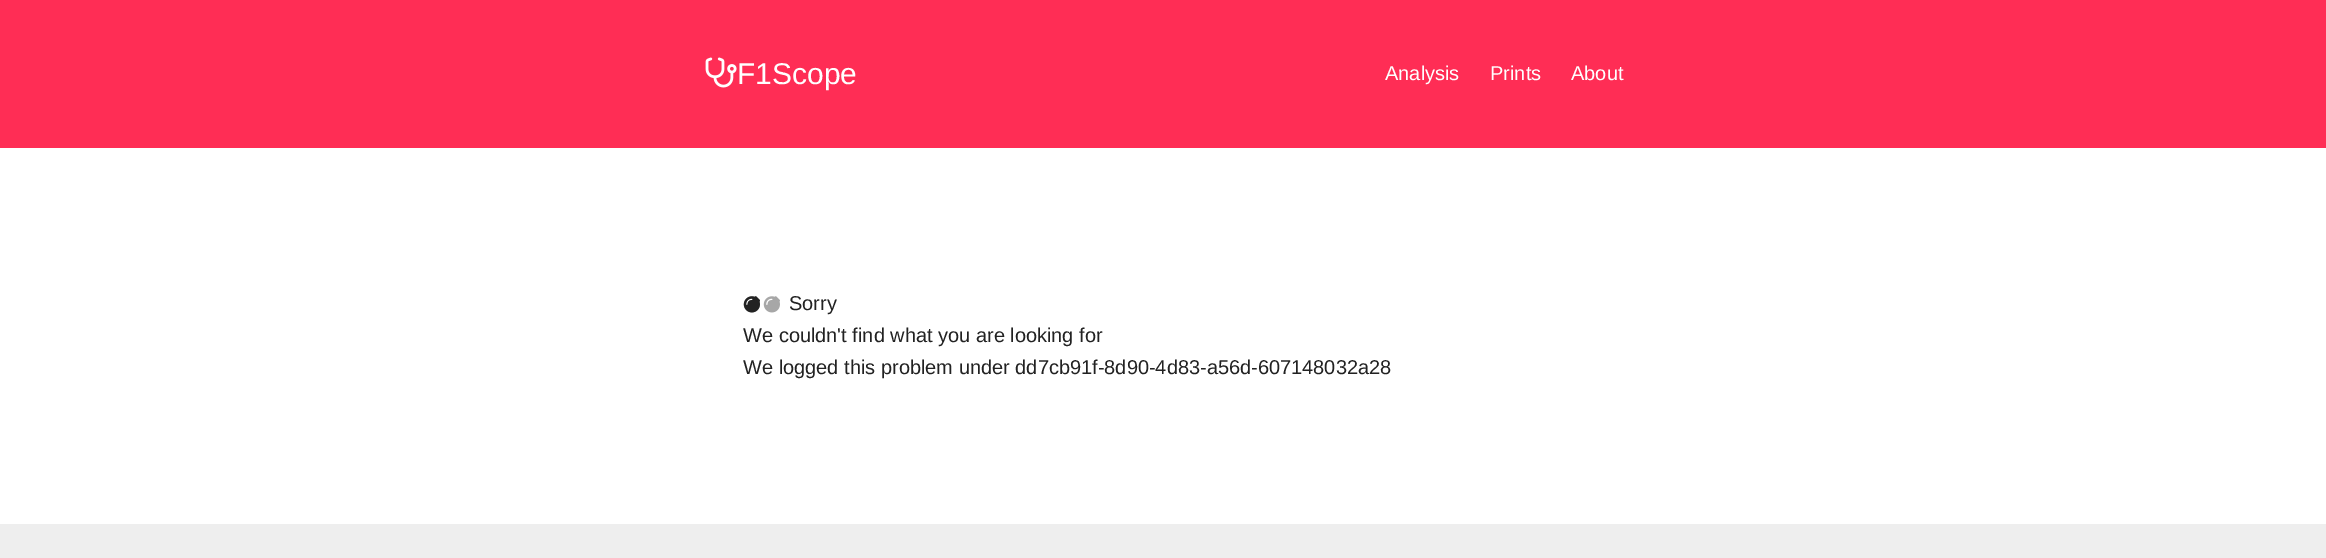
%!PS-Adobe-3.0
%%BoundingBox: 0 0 2326 558
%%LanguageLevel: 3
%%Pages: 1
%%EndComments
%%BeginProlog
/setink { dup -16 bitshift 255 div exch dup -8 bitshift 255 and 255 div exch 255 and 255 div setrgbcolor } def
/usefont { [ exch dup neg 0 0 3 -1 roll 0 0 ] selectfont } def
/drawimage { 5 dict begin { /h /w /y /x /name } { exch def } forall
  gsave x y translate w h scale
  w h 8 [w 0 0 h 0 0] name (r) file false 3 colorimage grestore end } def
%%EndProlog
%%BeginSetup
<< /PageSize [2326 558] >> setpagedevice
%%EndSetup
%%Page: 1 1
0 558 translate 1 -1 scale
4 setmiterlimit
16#FF2D55 setink
0 0 2326 558 rectfill
(img1.raw) 705 57 32 31 drawimage
/LiberationSans-Regular 30 usefont
16#FFFFFF setink
737 84 moveto (F1Scope) show
/LiberationSans-Regular 20 usefont
[
    [(Analysis) 1385 80]
    [(Prints) 1490 80]
    [(About) 1571 80]
] { aload pop moveto show } forall
0 148 2326 376 rectfill
(img2.raw) 743 296 17 17 drawimage
(img3.raw) 743 296 37 17 drawimage
16#222222 setink
[
    [(Sorry) 789 310]
    [(We couldn't find what you are looking for) 743 342]
    [(We logged this problem under dd7cb91f-8d90-4d83-a56d-607148032a28) 743 374]
] { aload pop moveto show } forall
16#EEEEEE setink
0 524 2326 34 rectfill
showpage
%%EOF
